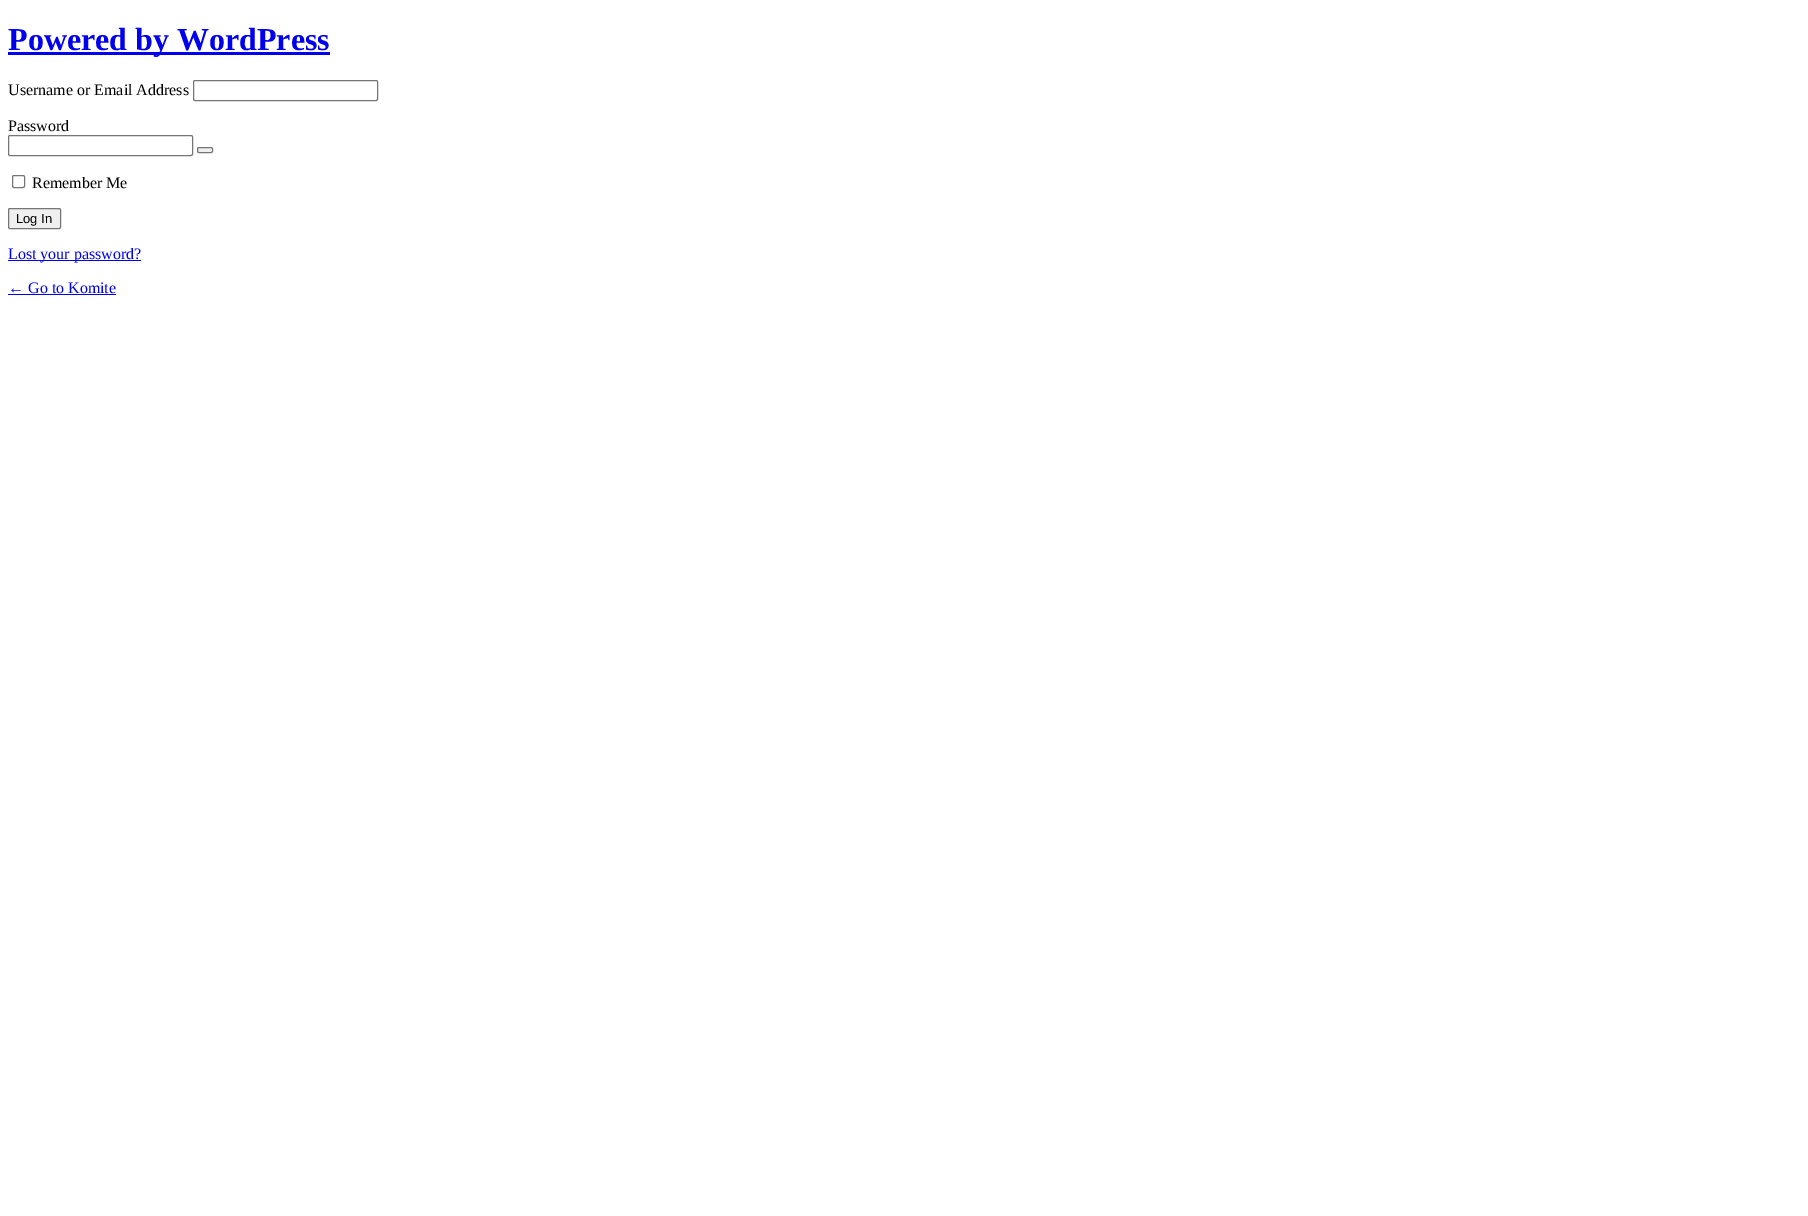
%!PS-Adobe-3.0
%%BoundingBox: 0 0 1808 1216
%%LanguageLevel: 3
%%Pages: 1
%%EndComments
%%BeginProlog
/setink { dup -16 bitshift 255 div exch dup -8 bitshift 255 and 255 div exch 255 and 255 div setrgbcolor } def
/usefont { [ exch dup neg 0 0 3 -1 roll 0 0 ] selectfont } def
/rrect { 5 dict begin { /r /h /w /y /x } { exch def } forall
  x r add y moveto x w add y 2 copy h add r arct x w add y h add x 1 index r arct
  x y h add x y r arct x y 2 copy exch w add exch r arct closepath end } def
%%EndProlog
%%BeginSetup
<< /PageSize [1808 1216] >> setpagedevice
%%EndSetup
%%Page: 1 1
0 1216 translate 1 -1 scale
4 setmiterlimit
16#FFFFFF setink
0 0 1808 1216 rectfill
16#0000EE setink
8 52 322 3 rectfill
/LiberationSerif-Bold 32 usefont
8 50 moveto (Powered by WordPress) show
/LiberationSerif-Regular 16 usefont
16#000000 setink
8 95 moveto (Username or Email Address) show
16#767676 setink
193.5 80.5 184 20 1.5 rrect stroke
16#000000 setink
8 131 moveto (Password) show
16#767676 setink
8.5 135.5 184 20 1.5 rrect stroke
16#EFEFEF setink
197.5 147.5 15 5 1.5 rrect gsave fill grestore
16#767676 setink
stroke
12.5 175.5 12 12 1.5 rrect stroke
16#000000 setink
32 188 moveto (Remember Me) show
16#EFEFEF setink
8.5 208.5 52 20 1.5 rrect gsave fill grestore
16#767676 setink
stroke
/LiberationSans-Regular 13 usefont
16#000000 setink
16 223 moveto (Log In) show
16#0000EE setink
8 260 133 1 rectfill
/LiberationSerif-Regular 16 usefont
8 259 moveto (Lost your password?) show
8 293 moveto (← Go to Komite) show
8 294 108 1 rectfill
showpage
%%EOF
